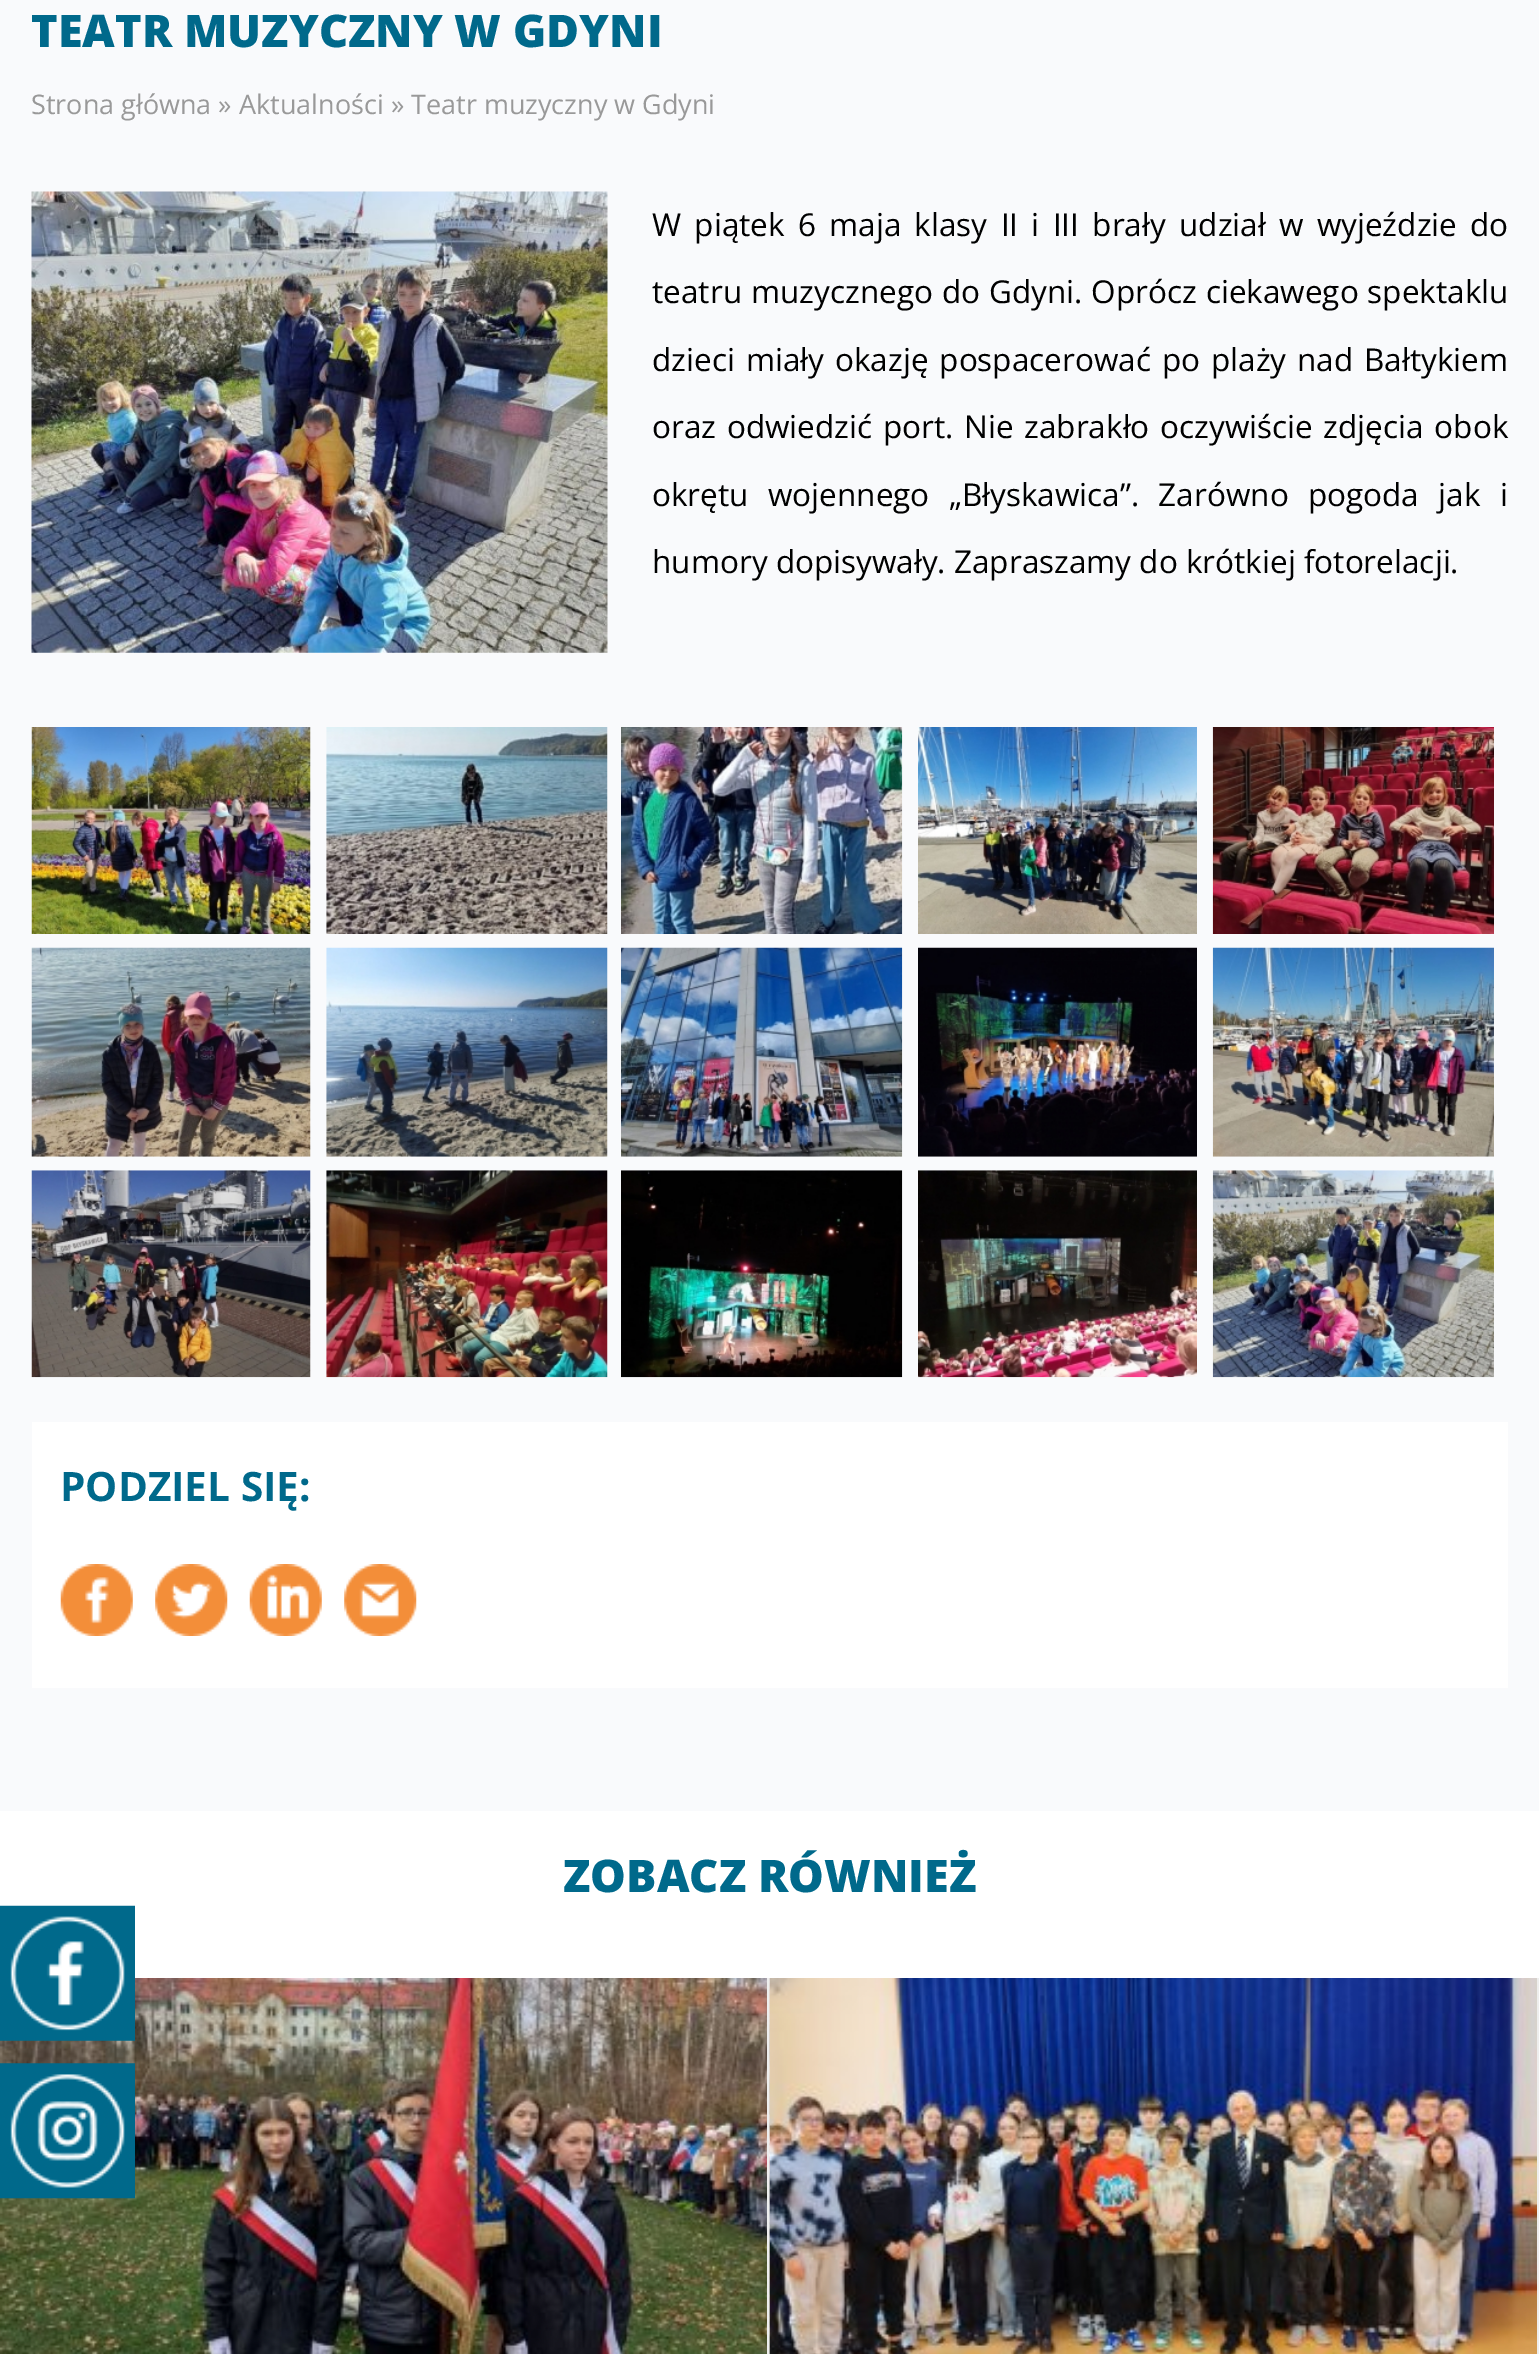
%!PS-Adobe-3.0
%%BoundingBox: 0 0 1539 2354
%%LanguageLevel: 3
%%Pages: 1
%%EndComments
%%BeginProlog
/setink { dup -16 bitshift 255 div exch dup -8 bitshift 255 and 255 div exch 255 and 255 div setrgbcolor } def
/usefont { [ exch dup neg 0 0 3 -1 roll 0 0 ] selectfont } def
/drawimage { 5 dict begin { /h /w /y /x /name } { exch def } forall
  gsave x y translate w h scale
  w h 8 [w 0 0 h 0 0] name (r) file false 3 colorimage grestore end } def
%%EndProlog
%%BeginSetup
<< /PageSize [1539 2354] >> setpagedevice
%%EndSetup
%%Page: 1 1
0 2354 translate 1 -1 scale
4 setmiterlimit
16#F9FAFC setink
0 0 1539 2354 rectfill
/OpenSans-ExtraBold 45 usefont
16#00698B setink
31 47 moveto (TEATR MUZYCZNY W GDYNI) show
/OpenSans-Regular 27 usefont
16#999999 setink
31 114 moveto (Strona główna » Aktualności » Teatr muzyczny w Gdyni) show
(img1.raw) 31 191 577 462 drawimage
/OpenSans-Regular 31.5 usefont
16#000000 setink
652 236 moveto 5.1 0 32 (W piątek 6 maja klasy II i III brały udział w wyjeździe do) widthshow
652 303 moveto 0.75 0 32 (teatru muzycznego do Gdyni. Oprócz ciekawego spektaklu) widthshow
652 371 moveto 2.75 0 32 (dzieci miały okazję pospacerować po plaży nad Bałtykiem) widthshow
652 438 moveto 2.5 0 32 (oraz odwiedzić port. Nie zabrakło oczywiście zdjęcia obok) widthshow
652 506 moveto 11.25 0 32 (okrętu wojennego „Błyskawica”. Zarówno pogoda jak i) widthshow
652 573 moveto (humory dopisywały. Zapraszamy do krótkiej fotorelacji.) show
(img2.raw) 31 727 280 207 drawimage
(img3.raw) 326 727 282 207 drawimage
(img4.raw) 621 727 282 207 drawimage
(img5.raw) 918 727 279 207 drawimage
(img6.raw) 1212 727 282 207 drawimage
(img7.raw) 31 947 280 210 drawimage
(img8.raw) 326 947 282 210 drawimage
(img9.raw) 621 947 282 210 drawimage
(img10.raw) 918 947 279 210 drawimage
(img11.raw) 1212 947 282 210 drawimage
(img12.raw) 31 1170 280 208 drawimage
(img13.raw) 326 1170 282 208 drawimage
(img14.raw) 621 1170 282 208 drawimage
(img15.raw) 918 1170 279 208 drawimage
(img16.raw) 1212 1170 282 208 drawimage
16#FFFFFF setink
32 1422 1476 266 rectfill
/OpenSans-Bold 40.5 usefont
16#00698B setink
60 1501 moveto (PODZIEL SIĘ:) show
(img17.raw) 60 1564 73 72 drawimage
(img18.raw) 155 1564 73 72 drawimage
(img19.raw) 249 1564 73 72 drawimage
(img20.raw) 344 1564 73 72 drawimage
16#FFFFFF setink
0 1811 1539 543 rectfill
/OpenSans-ExtraBold 45 usefont
16#00698B setink
563 1892 moveto (ZOBACZ RÓWNIEŻ) show
(img21.raw) 0 1978 770 376 drawimage
16#EEEEEE setink
767 1978 2 376 rectfill
(img22.raw) 769 1978 768 376 drawimage
1537 1978 2 376 rectfill
(img23.raw) 0 1905 135 136 drawimage
(img24.raw) 0 2063 135 136 drawimage
showpage
%%EOF
